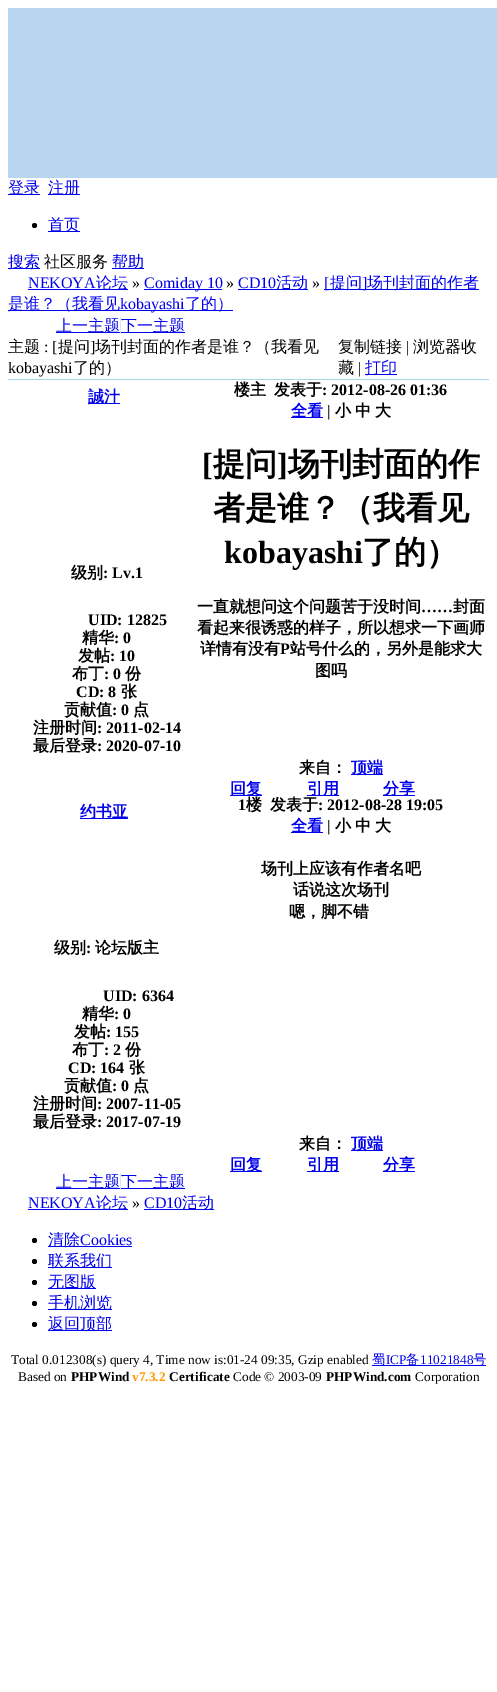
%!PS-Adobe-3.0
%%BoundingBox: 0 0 497 1692
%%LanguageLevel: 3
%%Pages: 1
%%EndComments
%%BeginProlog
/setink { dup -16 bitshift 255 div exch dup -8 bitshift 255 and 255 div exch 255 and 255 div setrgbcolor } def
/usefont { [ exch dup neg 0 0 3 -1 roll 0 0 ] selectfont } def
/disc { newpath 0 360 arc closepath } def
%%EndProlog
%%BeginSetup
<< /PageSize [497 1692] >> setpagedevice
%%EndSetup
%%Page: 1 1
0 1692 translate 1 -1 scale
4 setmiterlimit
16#FFFFFF setink
0 0 497 1692 rectfill
16#B8D6F0 setink
8 8 489 170 rectfill
16#0000EE setink
8 194 32 1 rectfill
/WenQuanYiZenHei-Medium 16 usefont
8 193 moveto (登录) show
48 194 32 1 rectfill
48 193 moveto (注册) show
16#000000 setink
34.5 225.5 2.5 disc fill
16#0000EE setink
48 231 32 1 rectfill
48 230 moveto (首页) show
8 268 32 1 rectfill
8 267 moveto (搜索) show
16#000000 setink
44 267 moveto (社区服务) show
16#0000EE setink
112 268 32 1 rectfill
112 267 moveto (帮助) show
/LiberationSerif-Regular 16 usefont
28 288 moveto (NEKOYA) show
28 289 100 1 rectfill
/WenQuanYiZenHei-Medium 16 usefont
96 288 moveto (论坛) show
/LiberationSerif-Regular 16 usefont
16#000000 setink
132 288 moveto (») show
16#0000EE setink
144 289 78 1 rectfill
144 288 moveto (Comiday 10) show
16#000000 setink
226 288 moveto (») show
16#0000EE setink
238 288 moveto (CD10) show
238 289 70 1 rectfill
/WenQuanYiZenHei-Medium 16 usefont
276 288 moveto (活动) show
/LiberationSerif-Regular 16 usefont
16#000000 setink
312 288 moveto (») show
16#0000EE setink
324 289 155 1 rectfill
324 288 moveto ([) show
/WenQuanYiZenHei-Medium 16 usefont
330 288 moveto (提问) show
/LiberationSerif-Regular 16 usefont
362 288 moveto (]) show
/WenQuanYiZenHei-Medium 16 usefont
367 288 moveto (场刊封面的作者) show
8 310 225 1 rectfill
8 309 moveto (是谁？（我看见) show
/LiberationSerif-Regular 16 usefont
120 309 moveto (kobayashi) show
/WenQuanYiZenHei-Medium 16 usefont
185 309 moveto (了的）) show
56 332 64 1 rectfill
56 331 moveto (上一主题) show
121 332 64 1 rectfill
121 331 moveto (下一主题) show
16#D7E6F2 setink
120 317 1 17 rectfill
16#A9D5E9 setink
8 379 481 1 rectfill
16#000000 setink
8 352 moveto (主题) show
/LiberationSerif-Regular 16 usefont
44 352 moveto (: [) show
/WenQuanYiZenHei-Medium 16 usefont
58 352 moveto (提问) show
/LiberationSerif-Regular 16 usefont
90 352 moveto (]) show
/WenQuanYiZenHei-Medium 16 usefont
95 352 moveto (场刊封面的作者是谁？（我看见) show
/LiberationSerif-Regular 16 usefont
8 373 moveto (kobayashi) show
/WenQuanYiZenHei-Medium 16 usefont
73 373 moveto (了的）) show
338 352 moveto (复制链接) show
/LiberationSerif-Regular 16 usefont
406 352 moveto (|) show
/WenQuanYiZenHei-Medium 16 usefont
413 352 moveto (浏览器收) show
338 373 moveto (藏) show
/LiberationSerif-Regular 16 usefont
358 373 moveto (|) show
16#0000EE setink
365 374 32 1 rectfill
/WenQuanYiZenHei-Medium 16 usefont
365 373 moveto (打印) show
88 403 32 1 rectfill
/WenQuanYiZenHei-Bold 16 usefont
88 402 moveto (誠汁) show
16#000000 setink
71 578 moveto (级别) show
/LiberationSerif-Bold 16 usefont
103 578 moveto (: Lv.1) show
88 625 moveto (UID: 12825) show
/WenQuanYiZenHei-Bold 16 usefont
82 643 moveto (精华) show
/LiberationSerif-Bold 16 usefont
114 643 moveto (: 0) show
/WenQuanYiZenHei-Bold 16 usefont
78 661 moveto (发帖) show
/LiberationSerif-Bold 16 usefont
110 661 moveto (: 10) show
/WenQuanYiZenHei-Bold 16 usefont
72 679 moveto (布丁) show
/LiberationSerif-Bold 16 usefont
104 679 moveto (: 0) show
/WenQuanYiZenHei-Bold 16 usefont
125 679 moveto (份) show
/LiberationSerif-Bold 16 usefont
76 697 moveto (CD: 8) show
/WenQuanYiZenHei-Bold 16 usefont
121 697 moveto (张) show
64 715 moveto (贡献值) show
/LiberationSerif-Bold 16 usefont
112 715 moveto (: 0) show
/WenQuanYiZenHei-Bold 16 usefont
133 715 moveto (点) show
33 733 moveto (注册时间) show
/LiberationSerif-Bold 16 usefont
97 733 moveto (: 2011-02-14) show
/WenQuanYiZenHei-Bold 16 usefont
33 751 moveto (最后登录) show
/LiberationSerif-Bold 16 usefont
97 751 moveto (: 2020-07-10) show
/WenQuanYiZenHei-Bold 16 usefont
234 395 moveto (楼主) show
274 395 moveto (发表于) show
/LiberationSerif-Bold 16 usefont
322 395 moveto (: 2012-08-26 01:36) show
16#0000EE setink
291 417 32 1 rectfill
/WenQuanYiZenHei-Bold 16 usefont
291 416 moveto (全看) show
/LiberationSerif-Bold 16 usefont
16#000000 setink
327 416 moveto (|) show
/WenQuanYiZenHei-Bold 16 usefont
[
    [(小) 335 416]
    [(中) 355 416]
    [(大) 375 416]
] { aload pop moveto show } forall
/LiberationSerif-Bold 32 usefont
202 475 moveto ([) show
/WenQuanYiZenHei-Bold 32 usefont
213 475 moveto (提问) show
/LiberationSerif-Bold 32 usefont
277 475 moveto (]) show
/WenQuanYiZenHei-Bold 32 usefont
288 475 moveto (场刊封面的作) show
213 519 moveto (者是谁？（我看见) show
/LiberationSerif-Bold 32 usefont
224 563 moveto (kobayashi) show
/WenQuanYiZenHei-Bold 32 usefont
362 563 moveto (了的）) show
/WenQuanYiZenHei-Bold 16 usefont
197 612 moveto (一直就想问这个问题苦于没时间) show
/LiberationSerif-Bold 16 usefont
421 612 moveto (……) show
/WenQuanYiZenHei-Bold 16 usefont
[
    [(封面) 453 612]
    [(看起来很诱惑的样子，所以想求一下画师) 197 633]
    [(详情有没有) 200 654]
] { aload pop moveto show } forall
/LiberationSerif-Bold 16 usefont
280 654 moveto (P) show
/WenQuanYiZenHei-Bold 16 usefont
[
    [(站号什么的，另外是能求大) 290 654]
    [(图吗) 315 676]
    [(来自：) 299 773]
] { aload pop moveto show } forall
16#0000EE setink
351 774 32 1 rectfill
351 773 moveto (顶端) show
230 795 32 1 rectfill
230 794 moveto (回复) show
307 795 32 1 rectfill
307 794 moveto (引用) show
383 795 32 1 rectfill
383 794 moveto (分享) show
80 818 48 1 rectfill
80 817 moveto (约书亚) show
16#000000 setink
54 953 moveto (级别) show
/LiberationSerif-Bold 16 usefont
86 953 moveto (:) show
/WenQuanYiZenHei-Bold 16 usefont
95 953 moveto (论坛版主) show
/LiberationSerif-Bold 16 usefont
103 1001 moveto (UID: 6364) show
/WenQuanYiZenHei-Bold 16 usefont
82 1019 moveto (精华) show
/LiberationSerif-Bold 16 usefont
114 1019 moveto (: 0) show
/WenQuanYiZenHei-Bold 16 usefont
74 1037 moveto (发帖) show
/LiberationSerif-Bold 16 usefont
106 1037 moveto (: 155) show
/WenQuanYiZenHei-Bold 16 usefont
72 1055 moveto (布丁) show
/LiberationSerif-Bold 16 usefont
104 1055 moveto (: 2) show
/WenQuanYiZenHei-Bold 16 usefont
125 1055 moveto (份) show
/LiberationSerif-Bold 16 usefont
68 1073 moveto (CD: 164) show
/WenQuanYiZenHei-Bold 16 usefont
129 1073 moveto (张) show
64 1091 moveto (贡献值) show
/LiberationSerif-Bold 16 usefont
112 1091 moveto (: 0) show
/WenQuanYiZenHei-Bold 16 usefont
133 1091 moveto (点) show
33 1109 moveto (注册时间) show
/LiberationSerif-Bold 16 usefont
97 1109 moveto (: 2007-11-05) show
/WenQuanYiZenHei-Bold 16 usefont
33 1127 moveto (最后登录) show
/LiberationSerif-Bold 16 usefont
97 1127 moveto (: 2017-07-19) show
238 810 moveto (1) show
/WenQuanYiZenHei-Bold 16 usefont
246 810 moveto (楼) show
270 810 moveto (发表于) show
/LiberationSerif-Bold 16 usefont
318 810 moveto (: 2012-08-28 19:05) show
16#0000EE setink
291 832 32 1 rectfill
/WenQuanYiZenHei-Bold 16 usefont
291 831 moveto (全看) show
/LiberationSerif-Bold 16 usefont
16#000000 setink
327 831 moveto (|) show
/WenQuanYiZenHei-Bold 16 usefont
[
    [(小) 335 831]
    [(中) 355 831]
    [(大) 375 831]
    [(场刊上应该有作者名吧) 261 874]
    [(话说这次场刊) 293 895]
    [(嗯，脚不错) 289 917]
    [(来自：) 299 1149]
] { aload pop moveto show } forall
16#0000EE setink
351 1150 32 1 rectfill
351 1149 moveto (顶端) show
230 1171 32 1 rectfill
230 1170 moveto (回复) show
307 1171 32 1 rectfill
307 1170 moveto (引用) show
383 1171 32 1 rectfill
383 1170 moveto (分享) show
56 1188 64 1 rectfill
/WenQuanYiZenHei-Medium 16 usefont
56 1187 moveto (上一主题) show
121 1188 64 1 rectfill
121 1187 moveto (下一主题) show
16#D7E6F2 setink
120 1173 1 17 rectfill
/LiberationSerif-Regular 16 usefont
16#0000EE setink
28 1208 moveto (NEKOYA) show
28 1209 100 1 rectfill
/WenQuanYiZenHei-Medium 16 usefont
96 1208 moveto (论坛) show
/LiberationSerif-Regular 16 usefont
16#000000 setink
132 1208 moveto (») show
16#0000EE setink
144 1208 moveto (CD10) show
144 1209 70 1 rectfill
/WenQuanYiZenHei-Medium 16 usefont
182 1208 moveto (活动) show
16#000000 setink
34.5 1240.5 2.5 disc fill
16#0000EE setink
48 1246 84 1 rectfill
48 1245 moveto (清除) show
/LiberationSerif-Regular 16 usefont
80 1245 moveto (Cookies) show
16#000000 setink
34.5 1261.5 2.5 disc fill
16#0000EE setink
48 1267 64 1 rectfill
/WenQuanYiZenHei-Medium 16 usefont
48 1266 moveto (联系我们) show
16#000000 setink
34.5 1282.5 2.5 disc fill
16#0000EE setink
48 1288 48 1 rectfill
48 1287 moveto (无图版) show
16#000000 setink
34.5 1303.5 2.5 disc fill
16#0000EE setink
48 1309 64 1 rectfill
48 1308 moveto (手机浏览) show
16#000000 setink
34.5 1324.5 2.5 disc fill
16#0000EE setink
48 1330 64 1 rectfill
48 1329 moveto (返回顶部) show
/LiberationSerif-Regular 13.3 usefont
16#000000 setink
11 1364 moveto (Total 0.012308\(s\) query 4, Time now is:01-24 09:35, Gzip enabled) show
16#0000EE setink
372 1365 114 1 rectfill
/WenQuanYiZenHei-Medium 13.3 usefont
372 1364 moveto (蜀) show
/LiberationSerif-Regular 13.3 usefont
386 1364 moveto (ICP) show
/WenQuanYiZenHei-Medium 13.3 usefont
406 1364 moveto (备) show
/LiberationSerif-Regular 13.3 usefont
420 1364 moveto (11021848) show
/WenQuanYiZenHei-Medium 13.3 usefont
473 1364 moveto (号) show
/LiberationSerif-Regular 13.3 usefont
16#000000 setink
18 1381 moveto (Based on) show
/LiberationSerif-Bold 13.3 usefont
71 1381 moveto (PHPWind) show
16#FF9900 setink
132 1381 moveto (v7.3.2) show
16#000000 setink
169 1381 moveto (Certificate) show
/LiberationSerif-Regular 13.3 usefont
233 1381 moveto (Code © 2003-09) show
/LiberationSerif-Bold 13.3 usefont
326 1381 moveto (PHPWind.com) show
/LiberationSerif-Regular 13.3 usefont
415 1381 moveto (Corporation) show
showpage
%%EOF
